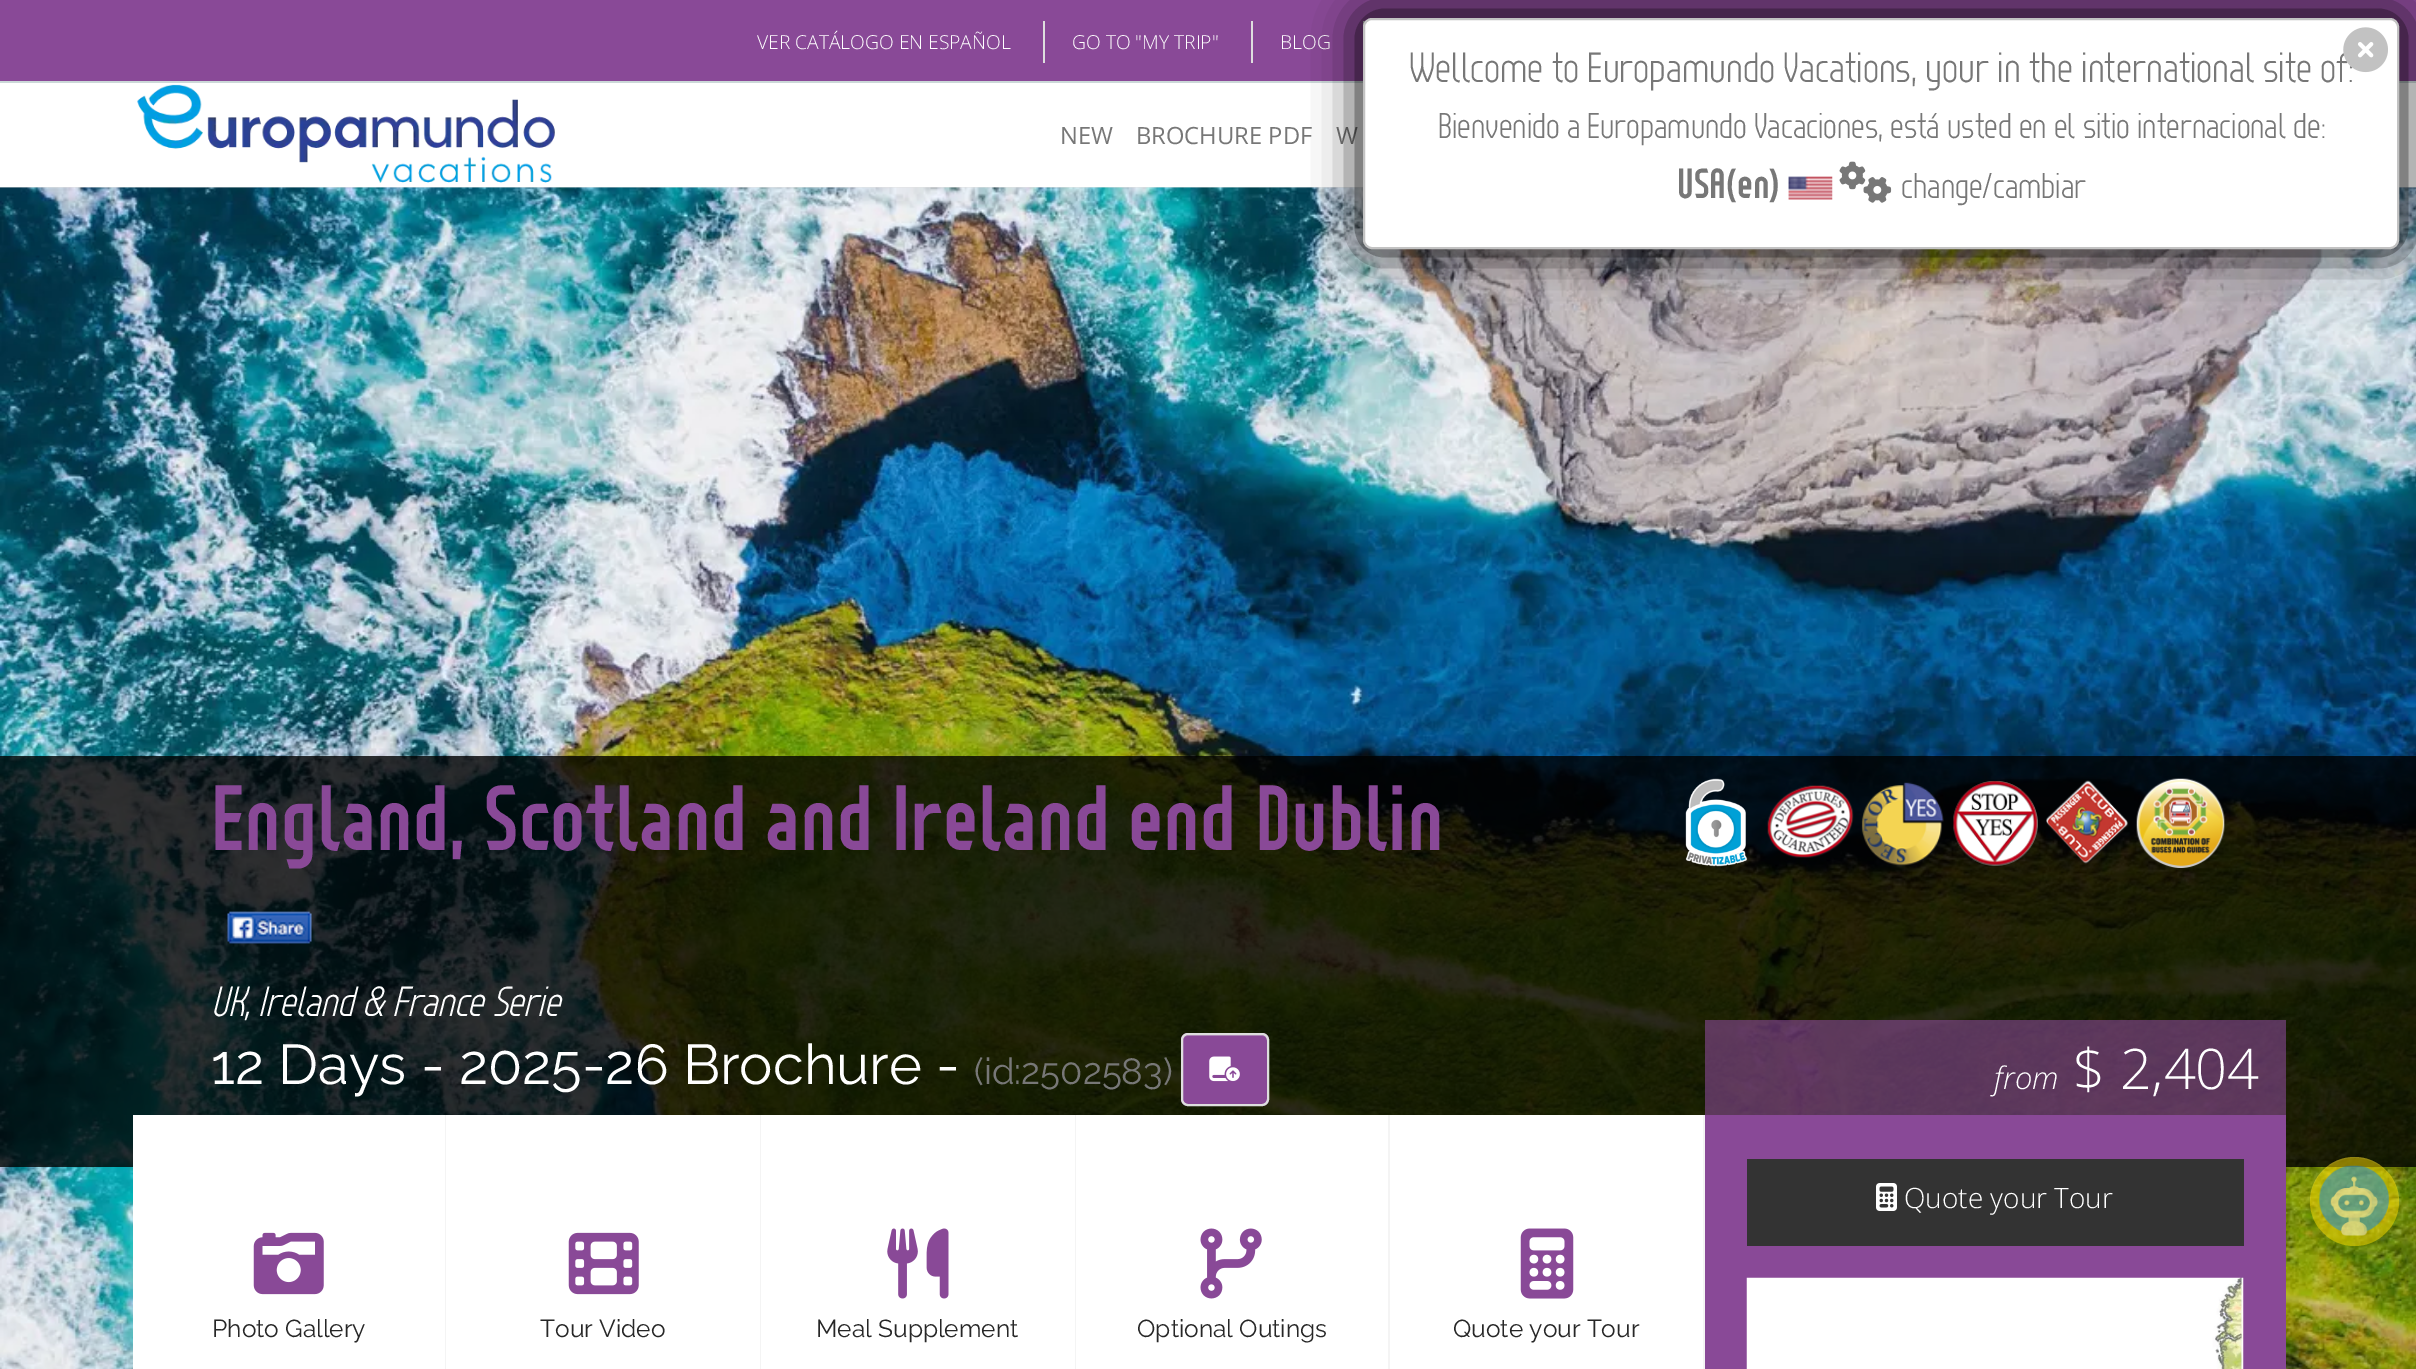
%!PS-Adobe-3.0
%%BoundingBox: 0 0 2416 1369
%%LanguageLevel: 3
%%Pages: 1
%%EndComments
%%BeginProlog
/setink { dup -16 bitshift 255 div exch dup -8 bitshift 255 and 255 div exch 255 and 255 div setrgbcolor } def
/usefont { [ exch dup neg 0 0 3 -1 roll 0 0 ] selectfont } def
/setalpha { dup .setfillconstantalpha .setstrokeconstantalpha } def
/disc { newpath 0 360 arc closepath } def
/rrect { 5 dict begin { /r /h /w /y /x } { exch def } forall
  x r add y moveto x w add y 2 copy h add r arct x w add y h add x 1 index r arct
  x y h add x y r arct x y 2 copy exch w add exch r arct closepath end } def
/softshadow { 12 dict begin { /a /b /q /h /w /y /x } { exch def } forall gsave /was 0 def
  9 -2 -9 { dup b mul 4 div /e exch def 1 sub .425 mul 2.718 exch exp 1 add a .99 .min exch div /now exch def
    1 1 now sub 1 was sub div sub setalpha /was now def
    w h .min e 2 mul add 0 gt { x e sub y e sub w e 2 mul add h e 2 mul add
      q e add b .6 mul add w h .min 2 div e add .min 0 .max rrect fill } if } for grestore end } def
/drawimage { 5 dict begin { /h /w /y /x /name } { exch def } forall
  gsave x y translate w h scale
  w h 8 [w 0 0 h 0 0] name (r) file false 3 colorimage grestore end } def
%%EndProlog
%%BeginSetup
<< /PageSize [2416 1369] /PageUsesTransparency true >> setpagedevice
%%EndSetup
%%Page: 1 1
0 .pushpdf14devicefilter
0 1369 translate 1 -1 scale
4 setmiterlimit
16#FFFFFF setink
0 0 2416 1369 rectfill
[
    [0 0 2416 81 16#894997]
    [0 81 2416 2 16#CBD8D8]
    [1363 21 2 6 16#DEDEDE]
] { aload pop setink rectfill } forall
/OpenSans-Light 19.25 usefont
16#FFFFFF setink
757 49 moveto (VER CATÁLOGO EN ESPAÑOL) show
16#DEDEDE setink
1043 21 2 42 rectfill
16#FFFFFF setink
1072 49 moveto (GO TO "MY TRIP") show
16#DEDEDE setink
1251 21 2 42 rectfill
16#FFFFFF setink
1280 49 moveto (BLOG) show
(img1.raw) 137 84 418 99 drawimage
/OpenSans-Regular 23.75 usefont
16#777777 setink
[
    [(NEW) 1060 144]
    [(BROCHURE PDF) 1136 144]
    [(W) 1336 144]
] { aload pop moveto show } forall
16#E2E2E2 setink
0 187 2416 1 rectfill
(img2.raw) 0 187 2416 1182 drawimage
0.8 setalpha
16#000000 setink
0 756 2416 411 rectfill
/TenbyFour-Bold 92.4 usefont
1 setalpha
16#894997 setink
211 850 moveto (England, Scotland and Ireland end Dublin) show
(img3.raw) 227 911 85 33 drawimage
/TenbyFour-LightItalic 42 usefont
16#FFFFFF setink
211 1016 moveto (UK, Ireland & France Serie) show
/Raleway-Thin 56 usefont
211 1084 moveto (12 Days - 2025-26 Brochure -) show
/Raleway-Thin 36.5 usefont
16#777777 setink
974 1084 moveto (\(id:2502583\)) show
16#894997 setink
1181 1033 88 73 7 rrect fill
16#9B64A7 setink
1188 1036 moveto 1262 1036 lineto 1265 1036 1267 1038 1267 1041 curveto 1267 1031 1258 1034 1250 1034 curveto 1200 1034 lineto 1192 1034 1183 1031 1183 1041 curveto 1183 1038 1185 1036 1188 1036 curveto closepath fill
16#DEDEDE setink
2 setlinewidth
1182 1034 86 71 6 rrect stroke
(img4.raw) 1209 1056 31 26 drawimage
(img5.raw) 1685 778 63 89 drawimage
(img6.raw) 1767 785 87 73 drawimage
(img7.raw) 1861 782 83 84 drawimage
(img8.raw) 1953 781 85 85 drawimage
(img9.raw) 2046 780 83 84 drawimage
(img10.raw) 2136 778 89 90 drawimage
16#894997 setink
1705 1115 581 254 rectfill
0.6 setalpha
1705 1020 581 95 rectfill
/OpenSans-LightItalic 31 usefont
1 setalpha
16#FFFFFF setink
1994 1089 moveto (from) show
/OpenSans-Light 56 usefont
2073 1089 moveto ($ 2,404) show
16#333333 setink
1747 1159 497 87 rectfill
(img11.raw) 1876 1183 21 28 drawimage
/OpenSans-Light 28 usefont
16#FFFFFF setink
1904 1208 moveto (Quote your Tour) show
(img12.raw) 1746 1277 498 92 drawimage
133 1115 312 254 rectfill
16#F4F4F4 setink
445 1115 1 254 rectfill
(img13.raw) 253 1232 71 63 drawimage
/Raleway-Thin 24.5 usefont
16#272727 setink
212 1337 moveto (Photo Gallery) show
16#FFFFFF setink
446 1115 314 254 rectfill
16#F4F4F4 setink
760 1115 1 254 rectfill
(img14.raw) 568 1232 71 63 drawimage
16#272727 setink
540 1337 moveto (Tour Video) show
16#FFFFFF setink
761 1115 314 254 rectfill
16#F4F4F4 setink
1075 1115 1 254 rectfill
(img15.raw) 887 1228 62 71 drawimage
16#272727 setink
816 1337 moveto (Meal Supplement) show
16#FFFFFF setink
1076 1115 312 254 rectfill
16#F4F4F4 setink
1388 1115 2 254 rectfill
(img16.raw) 1200 1228 62 71 drawimage
16#272727 setink
1137 1337 moveto (Optional Outings) show
16#FFFFFF setink
1390 1115 313 254 rectfill
16#F4F4F4 setink
1703 1115 2 254 rectfill
(img17.raw) 1520 1228 54 71 drawimage
16#272727 setink
1453 1337 moveto (Quote your Tour) show
16#000000 setink
1360 14 1043 238 12 22 1 softshadow
16#FFFFFF setink
1364 19 1034 229 8 rrect gsave fill grestore
16#C2C2C2 setink
stroke
/TenbyFour-Light 42 usefont
16#777777 setink
1409 82 moveto (Wellcome to Europamundo Vacations, your in the international site of:) show
(img18.raw) 2343 27 45 46 drawimage
/TenbyFour-Light 35.7 usefont
1438 138 moveto (Bienvenido a Europamundo Vacaciones, está usted en el sitio internacional de:) show
/TenbyFour-Bold 42 usefont
1677 198 moveto (USA\(en\)) show
(img19.raw) 1788 176 45 24 drawimage
(img20.raw) 1839 161 53 42 drawimage
/TenbyFour-Light 35.7 usefont
1901 198 moveto (change/cambiar) show
0.5 setalpha
16#FFDD00 setink
2354.5 1201.5 44.5 disc fill
0.07 setalpha
16#FFFFFF setink
2355 1158 moveto 2379 1158 2399 1178 2399 1202 curveto 2399 1193 2396 1184 2391 1177 curveto 2367 1140 2309 1158 2310 1202 curveto 2310 1178 2330 1158 2355 1158 curveto closepath fill
1 setalpha
(img21.raw) 2319 1165 70 71 drawimage
.poppdf14devicefilter showpage
%%EOF
